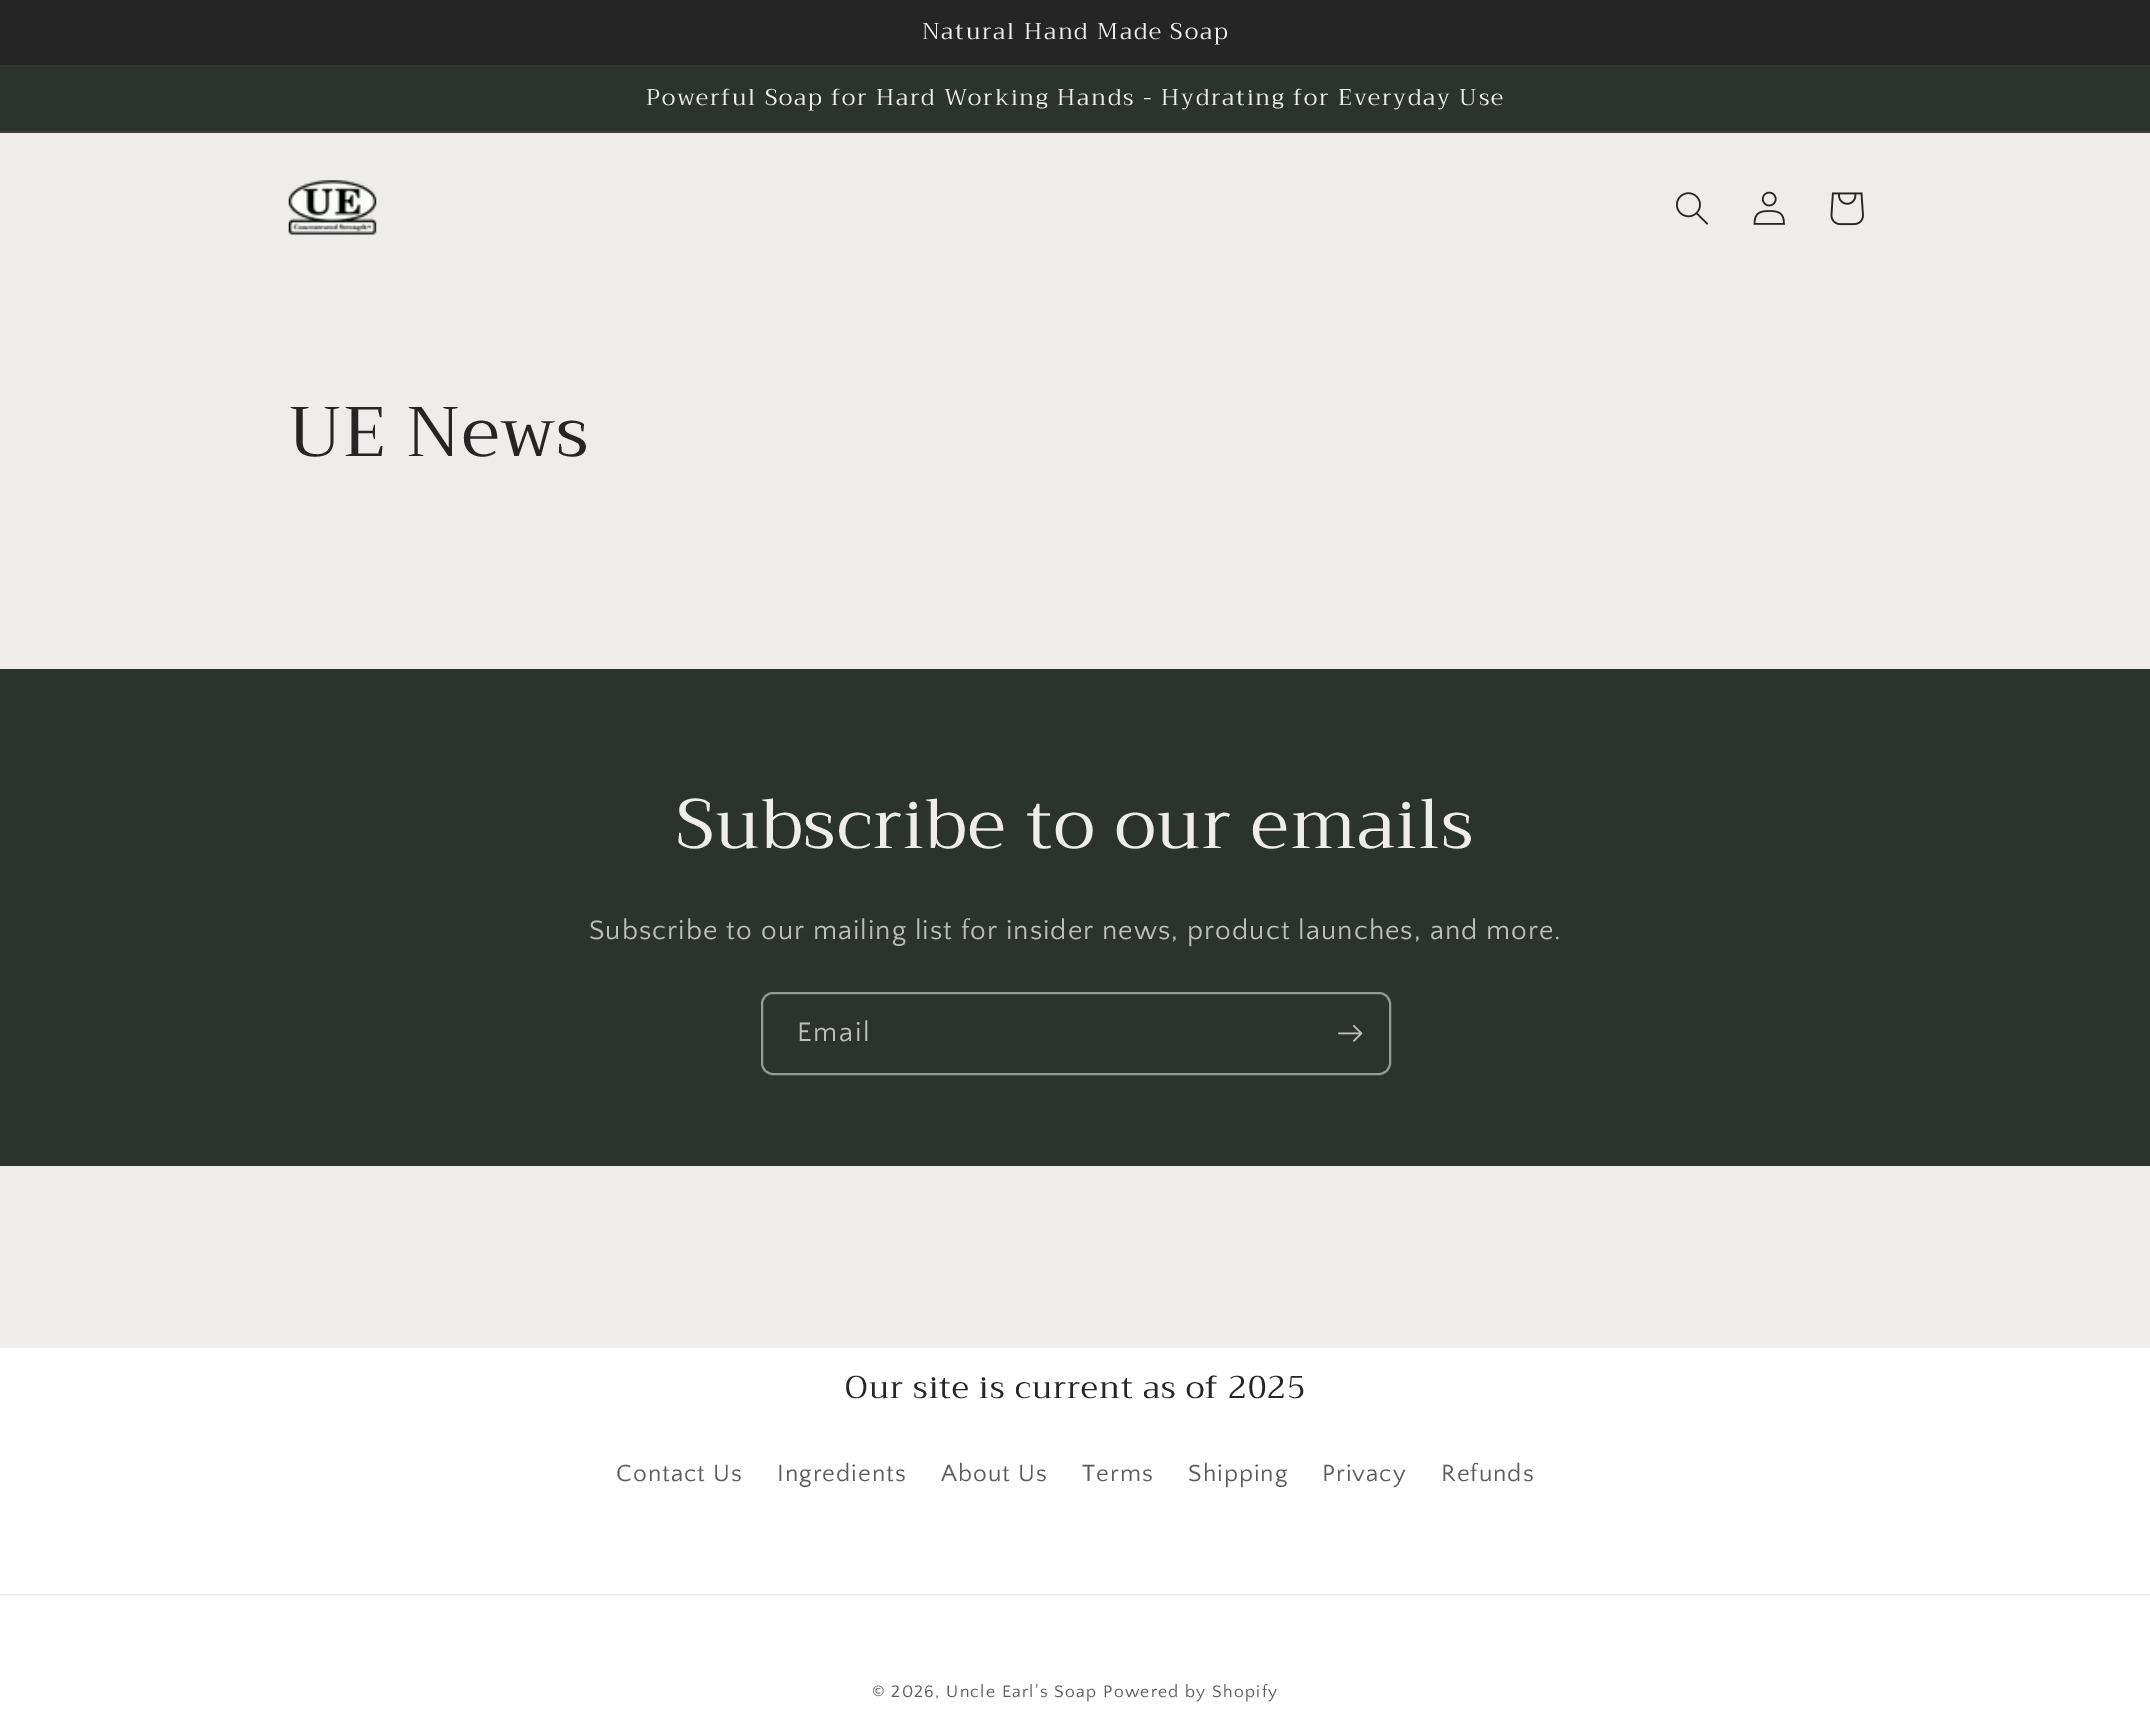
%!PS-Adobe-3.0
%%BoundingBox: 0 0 2150 1730
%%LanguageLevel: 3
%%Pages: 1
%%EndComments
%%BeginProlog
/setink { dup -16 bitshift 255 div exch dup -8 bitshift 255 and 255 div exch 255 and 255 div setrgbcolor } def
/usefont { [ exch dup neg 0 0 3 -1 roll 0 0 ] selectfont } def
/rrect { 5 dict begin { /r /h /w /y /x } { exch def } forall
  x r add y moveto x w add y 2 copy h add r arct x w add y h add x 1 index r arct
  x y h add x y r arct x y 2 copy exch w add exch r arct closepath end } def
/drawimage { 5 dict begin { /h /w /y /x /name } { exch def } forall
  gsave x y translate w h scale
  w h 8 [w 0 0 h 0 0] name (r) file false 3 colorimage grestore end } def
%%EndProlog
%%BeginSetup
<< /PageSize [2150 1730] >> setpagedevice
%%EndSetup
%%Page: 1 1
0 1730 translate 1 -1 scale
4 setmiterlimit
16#EFECEC setink
0 0 2150 1730 rectfill
16#252525 setink
0 0 2150 65 rectfill
16#353535 setink
0 65 2150 2 rectfill
/Trirong-Regular 22.75 usefont
16#EFECEC setink
922 39 moveto 1.75 0 (Natural Hand Made Soap) ashow
16#2C332F setink
0 67 2150 64 rectfill
16#3C423E setink
0 131 2150 2 rectfill
16#EFECEC setink
646 105 moveto 1.75 0 (Powerful Soap for Hard Working Hands - Hydrating for Everyday Use) ashow
(img1.raw) 288 180 89 55 drawimage
(img2.raw) 1676 192 32 33 drawimage
(img3.raw) 1753 191 32 34 drawimage
(img4.raw) 1830 192 34 34 drawimage
/Trirong-Regular 70 usefont
16#252525 setink
288 456 moveto 1.05 0 (UE News) ashow
16#2C332F setink
0 669 2150 497 rectfill
16#EFECEC setink
676 848 moveto 1.05 0 (Subscribe to our emails) ashow
/QuattrocentoSans-Regular 28 usefont
16#BEBEBD setink
589 939 moveto 1.05 0 (Subscribe to our mailing list for insider news, product launches, and more.) ashow
16#979997 setink
2 setlinewidth
762 993 628 81 11 rrect stroke
16#BEBEBD setink
797 1041 moveto 1.75 0 (Email) ashow
(img5.raw) 1338 1025 25 17 drawimage
16#FFFFFF setink
0 1348 2150 382 rectfill
/Trirong-Regular 31.5 usefont
16#252525 setink
845 1398 moveto 1.05 0 (Our site is current as of 2025) ashow
/QuattrocentoSans-Regular 24.5 usefont
16#5C5C5C setink
616 1481 moveto 1.05 0 (Contact Us) ashow
777 1481 moveto 1.05 0 (Ingredients) ashow
941 1481 moveto 1.05 0 (About Us) ashow
1082 1481 moveto 1.05 0 (Terms) ashow
1188 1481 moveto 1.05 0 (Shipping) ashow
1322 1481 moveto 1.05 0 (Privacy) ashow
1441 1481 moveto 1.05 0 (Refunds) ashow
16#EEEEEE setink
0 1594 2150 2 rectfill
/QuattrocentoSans-Regular 17.5 usefont
16#5C5C5C setink
872 1697 moveto 1.25 0 (© 2026, Uncle Earl's Soap) ashow
1103 1697 moveto 1.25 0 (Powered by Shopify) ashow
showpage
%%EOF
